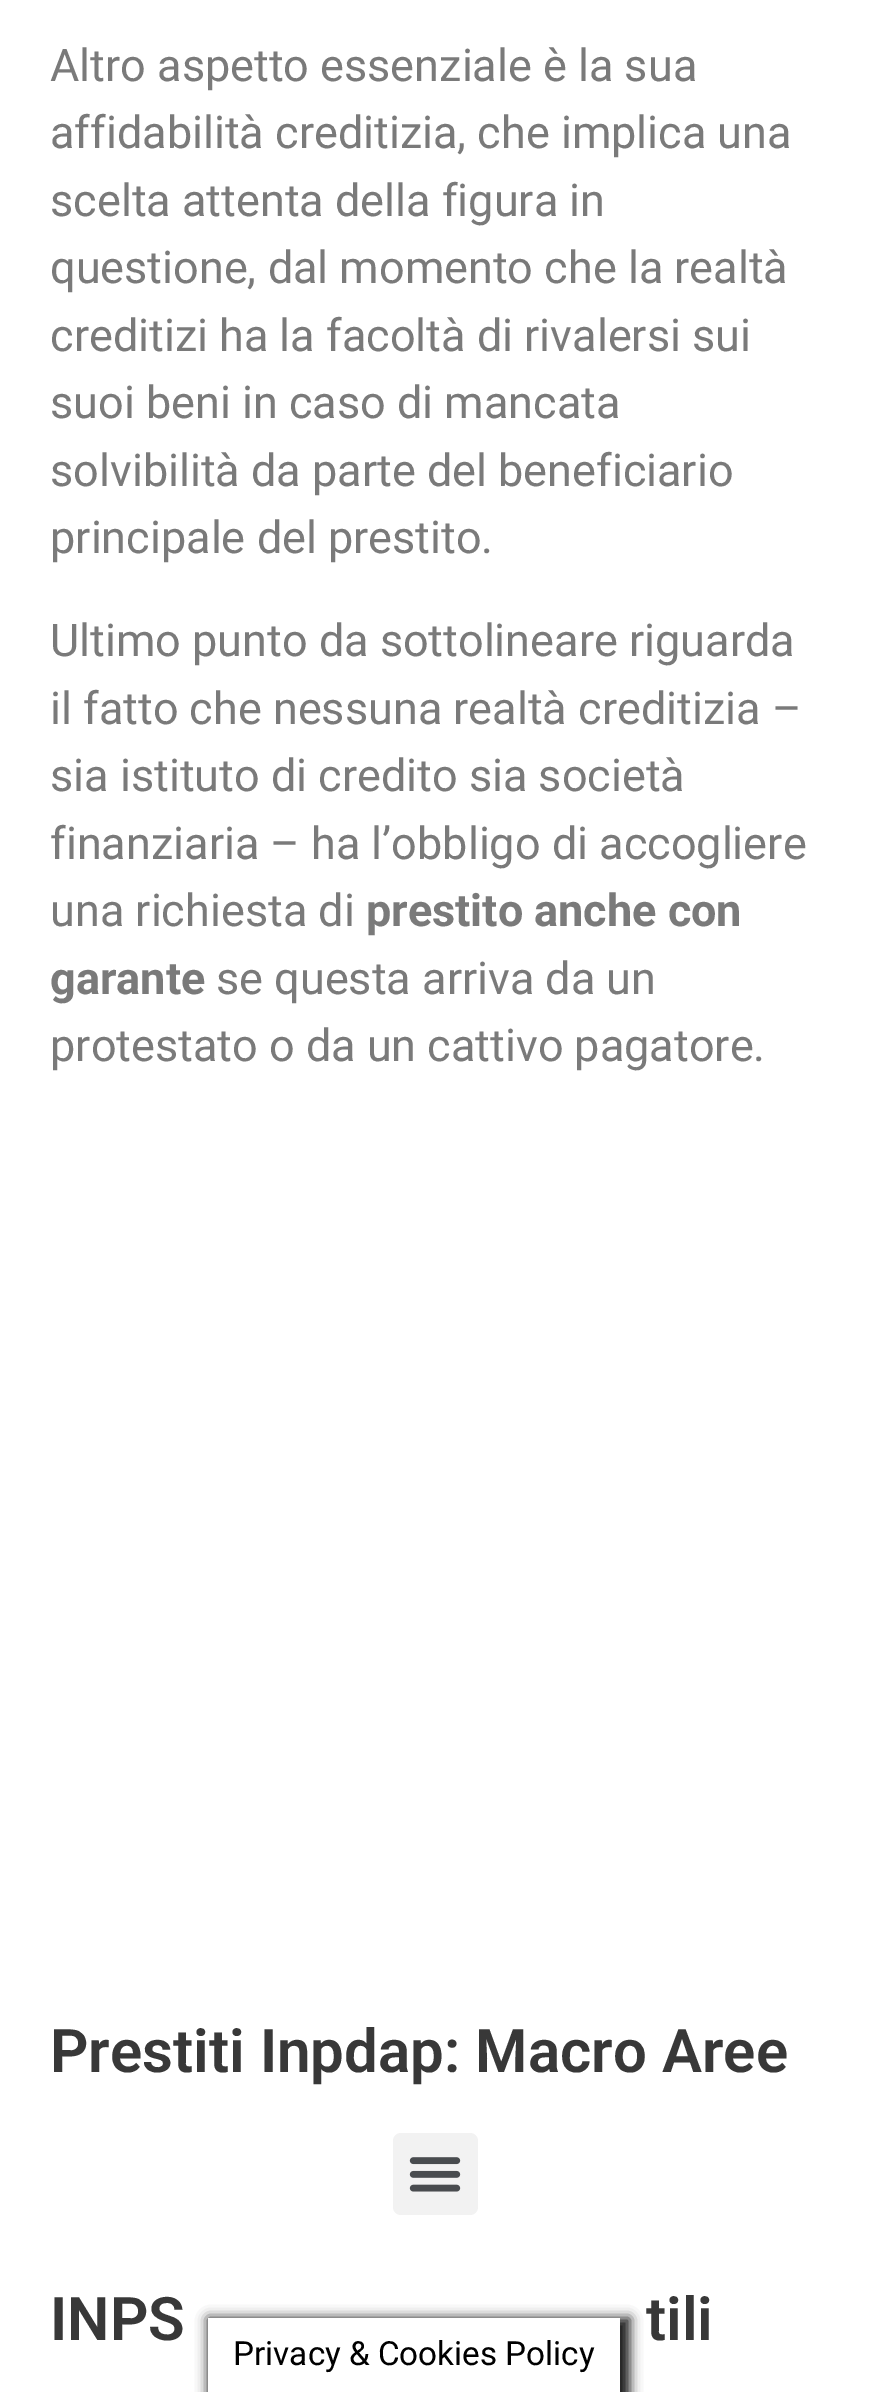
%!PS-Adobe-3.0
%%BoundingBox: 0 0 870 2392
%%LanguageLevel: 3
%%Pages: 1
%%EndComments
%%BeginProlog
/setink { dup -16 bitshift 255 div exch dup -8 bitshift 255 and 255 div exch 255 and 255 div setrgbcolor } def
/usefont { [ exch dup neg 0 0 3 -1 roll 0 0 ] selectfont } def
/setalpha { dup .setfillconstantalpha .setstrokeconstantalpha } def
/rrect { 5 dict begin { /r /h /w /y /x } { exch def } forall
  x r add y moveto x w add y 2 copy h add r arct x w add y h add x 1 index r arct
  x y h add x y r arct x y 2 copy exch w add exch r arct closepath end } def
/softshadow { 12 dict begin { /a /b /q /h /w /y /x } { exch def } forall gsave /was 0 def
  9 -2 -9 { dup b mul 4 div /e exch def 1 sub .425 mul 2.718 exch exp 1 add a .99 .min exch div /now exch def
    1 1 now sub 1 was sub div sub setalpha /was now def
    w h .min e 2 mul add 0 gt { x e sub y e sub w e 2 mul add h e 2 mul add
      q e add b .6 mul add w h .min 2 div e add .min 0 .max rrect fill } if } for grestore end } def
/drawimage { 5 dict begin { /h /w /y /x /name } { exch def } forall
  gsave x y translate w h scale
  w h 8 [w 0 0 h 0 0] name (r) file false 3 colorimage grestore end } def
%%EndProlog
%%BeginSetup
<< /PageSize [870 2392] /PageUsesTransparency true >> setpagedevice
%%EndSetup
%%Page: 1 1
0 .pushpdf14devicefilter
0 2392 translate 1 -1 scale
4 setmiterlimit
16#FFFFFF setink
0 0 870 2392 rectfill
/Roboto-Regular 45 usefont
16#7A7A7A setink
[
    [(Altro aspetto essenziale è la sua) 50 81]
    [(affidabilità creditizia, che implica una) 50 148]
    [(scelta attenta della figura in) 50 216]
    [(questione, dal momento che la realtà) 50 283]
    [(creditizi ha la facoltà di rivalersi sui) 50 351]
    [(suoi beni in caso di mancata) 50 418]
    [(solvibilità da parte del beneficiario) 50 486]
    [(principale del prestito.) 50 553]
    [(Ultimo punto da sottolineare riguarda) 50 656]
    [(il fatto che nessuna realtà creditizia –) 50 724]
    [(sia istituto di credito sia società) 50 791]
    [(finanziaria – ha l’obbligo di accogliere) 50 859]
    [(una richiesta di) 50 926]
] { aload pop moveto show } forall
/Roboto-Bold 45 usefont
366 926 moveto (prestito anche con) show
50 994 moveto (garante) show
/Roboto-Regular 45 usefont
216 994 moveto (se questa arriva da un) show
50 1061 moveto (protestato o da un cattivo pagatore.) show
/Roboto-SemiBold 60 usefont
16#383838 setink
50 2072 moveto (Prestiti Inpdap: Macro Aree) show
16#F2F2F2 setink
393 2133 85 82 8 rrect fill
(img1.raw) 409 2157 52 35 drawimage
16#383838 setink
50 2340 moveto (INPS) show
646 2340 moveto (tili) show
16#161616 setink
208 2318 422 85 0 6 1 softshadow
16#FFFFFF setink
208 2318 412 74 rectfill
/Roboto-Regular 33.25 usefont
16#000000 setink
233 2365 moveto (Privacy & Cookies Policy) show
.poppdf14devicefilter showpage
%%EOF
